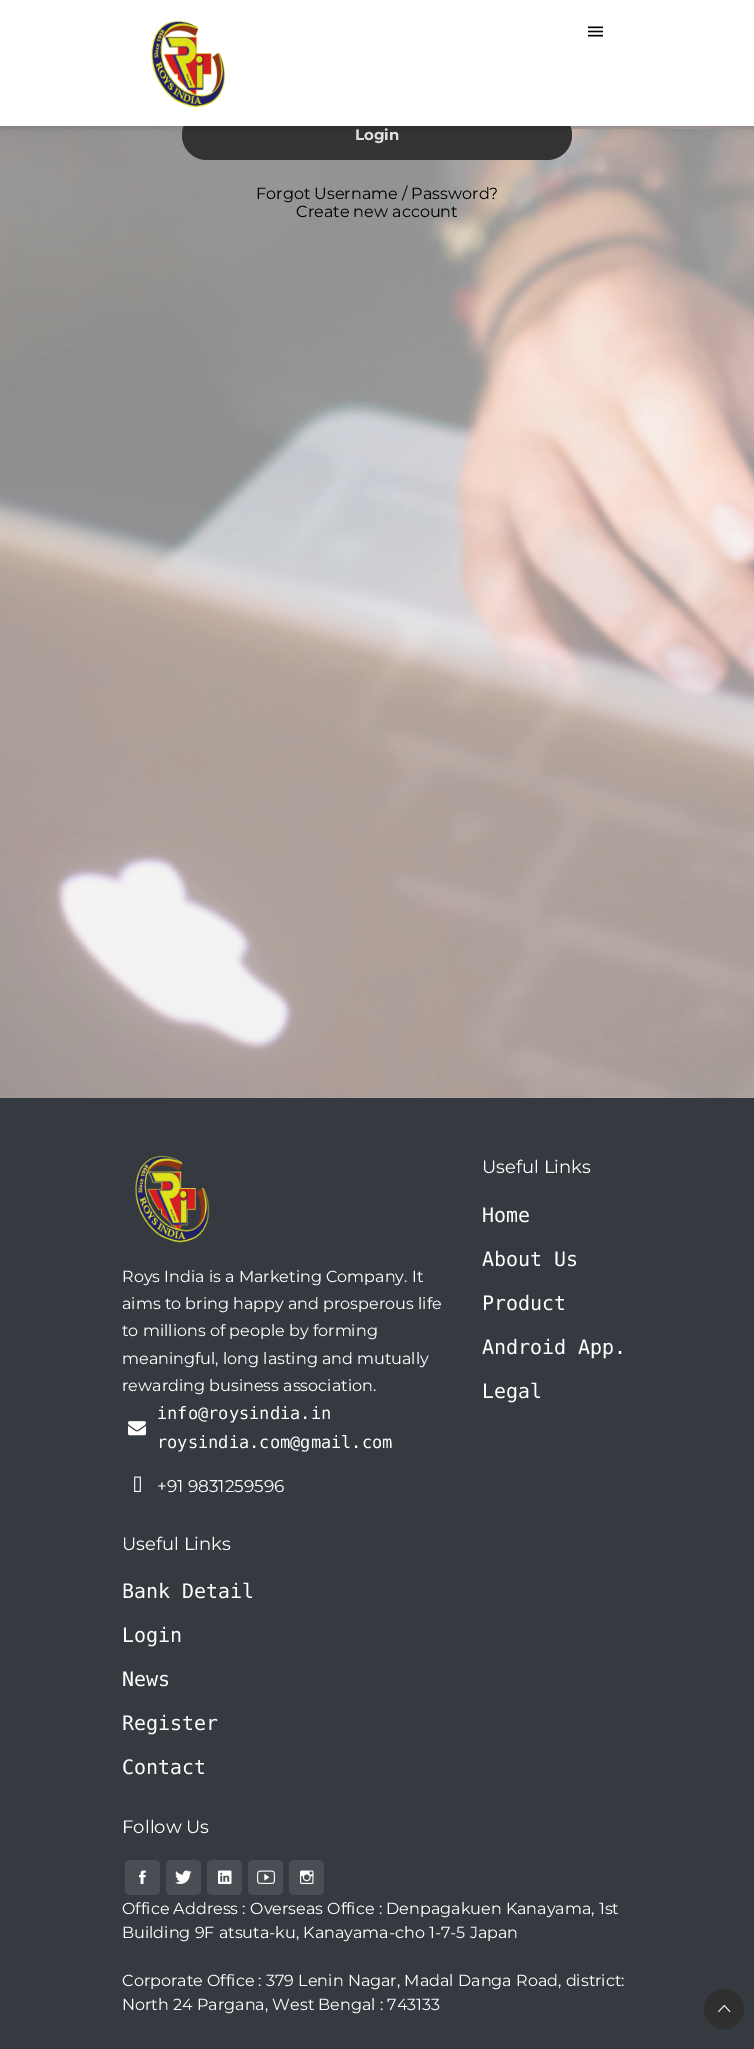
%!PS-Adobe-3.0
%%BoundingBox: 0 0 754 2049
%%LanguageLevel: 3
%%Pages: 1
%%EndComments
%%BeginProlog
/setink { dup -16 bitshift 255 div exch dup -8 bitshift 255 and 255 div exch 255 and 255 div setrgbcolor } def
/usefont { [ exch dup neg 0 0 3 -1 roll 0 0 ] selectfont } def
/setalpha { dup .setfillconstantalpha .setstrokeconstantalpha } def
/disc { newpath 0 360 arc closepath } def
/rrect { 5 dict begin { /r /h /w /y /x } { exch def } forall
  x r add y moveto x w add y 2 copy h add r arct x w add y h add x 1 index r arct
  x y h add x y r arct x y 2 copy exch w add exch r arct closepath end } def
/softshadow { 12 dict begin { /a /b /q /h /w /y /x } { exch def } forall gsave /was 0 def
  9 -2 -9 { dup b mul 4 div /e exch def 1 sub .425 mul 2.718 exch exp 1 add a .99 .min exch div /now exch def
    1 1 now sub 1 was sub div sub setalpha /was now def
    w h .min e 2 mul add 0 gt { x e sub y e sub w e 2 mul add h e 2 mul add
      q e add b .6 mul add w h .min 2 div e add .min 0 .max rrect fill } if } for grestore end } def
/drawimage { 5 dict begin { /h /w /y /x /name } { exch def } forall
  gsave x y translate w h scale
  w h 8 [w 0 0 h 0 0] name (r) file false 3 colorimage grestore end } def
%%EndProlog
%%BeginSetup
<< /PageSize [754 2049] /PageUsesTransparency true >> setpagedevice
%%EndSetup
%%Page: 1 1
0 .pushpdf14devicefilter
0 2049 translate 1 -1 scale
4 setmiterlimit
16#343A40 setink
0 0 754 2049 rectfill
(img3.raw) 0 126 754 972 drawimage
(img4.raw) 0 126 754 972 drawimage
16#333333 setink
182 110 390 50 25 rrect fill
16#000000 setink
0 0 754 126 0 5 0.2 softshadow
16#FFFFFF setink
0 0 754 126 rectfill
(img1.raw) 151 21 75 87 drawimage
(img2.raw) 588 26 15 11 drawimage
/Montserrat-Bold 15 usefont
16#E0E0E0 setink
355 140 moveto (Login) show
/Montserrat-Regular 16 usefont
16#000000 setink
256 199 moveto (Forgot Username / Password?) show
296 217 moveto (Create new account) show
(img5.raw) 135 1156 75 87 drawimage
16#FFFFFF setink
[
    [(Roys India is a Marketing Company. It) 122 1282]
    [(aims to bring happy and prosperous life) 122 1309]
    [(to millions of people by forming) 122 1336]
    [(meaningful, long lasting and mutually) 122 1364]
    [(rewarding business association.) 122 1391]
] { aload pop moveto show } forall
(img6.raw) 128 1421 18 15 drawimage
/DejaVuSansMono-Regular 17 usefont
157 1419 moveto (info@roysindia.in) show
157 1448 moveto (roysindia.com@gmail.com) show
(img7.raw) 134 1476 7 16 drawimage
/Montserrat-Regular 17 usefont
157 1492 moveto (+91 9831259596) show
/Montserrat-Regular 18 usefont
482 1173 moveto (Useful Links) show
/DejaVuSansMono-Regular 20 usefont
[
    [(Home) 482 1222]
    [(About Us) 482 1266]
    [(Product) 482 1310]
    [(Android App.) 482 1354]
    [(Legal) 482 1398]
] { aload pop moveto show } forall
/Montserrat-Regular 18 usefont
122 1550 moveto (Useful Links) show
/DejaVuSansMono-Regular 20 usefont
[
    [(Bank Detail) 122 1598]
    [(Login) 122 1642]
    [(News) 122 1686]
    [(Register) 122 1730]
    [(Contact) 122 1774]
] { aload pop moveto show } forall
/Montserrat-Regular 18 usefont
122 1833 moveto (Follow Us) show
16#484E53 setink
125 1860 35 35 5 rrect fill
(img8.raw) 139 1870 7 14 drawimage
166 1860 35 35 5 rrect fill
(img9.raw) 175 1870 17 14 drawimage
207 1860 35 35 5 rrect fill
(img10.raw) 218 1870 14 14 drawimage
248 1860 35 35 5 rrect fill
(img11.raw) 257 1870 18 14 drawimage
289 1860 35 35 5 rrect fill
(img12.raw) 300 1870 14 14 drawimage
/Montserrat-Regular 16 usefont
16#FFFFFF setink
[
    [(Office Address : Overseas Office : Denpagakuen Kanayama, 1st) 122 1914]
    [(Building 9F atsuta-ku, Kanayama-cho 1-7-5 Japan) 122 1938]
    [(Corporate Office : 379 Lenin Nagar, Madal Danga Road, district:) 122 1986]
    [(North 24 Pargana, West Bengal : 743133) 122 2010]
] { aload pop moveto show } forall
16#2F2F2F setink
724 2009 20 disc fill
(img13.raw) 718 2004 13 9 drawimage
.poppdf14devicefilter showpage
%%EOF
